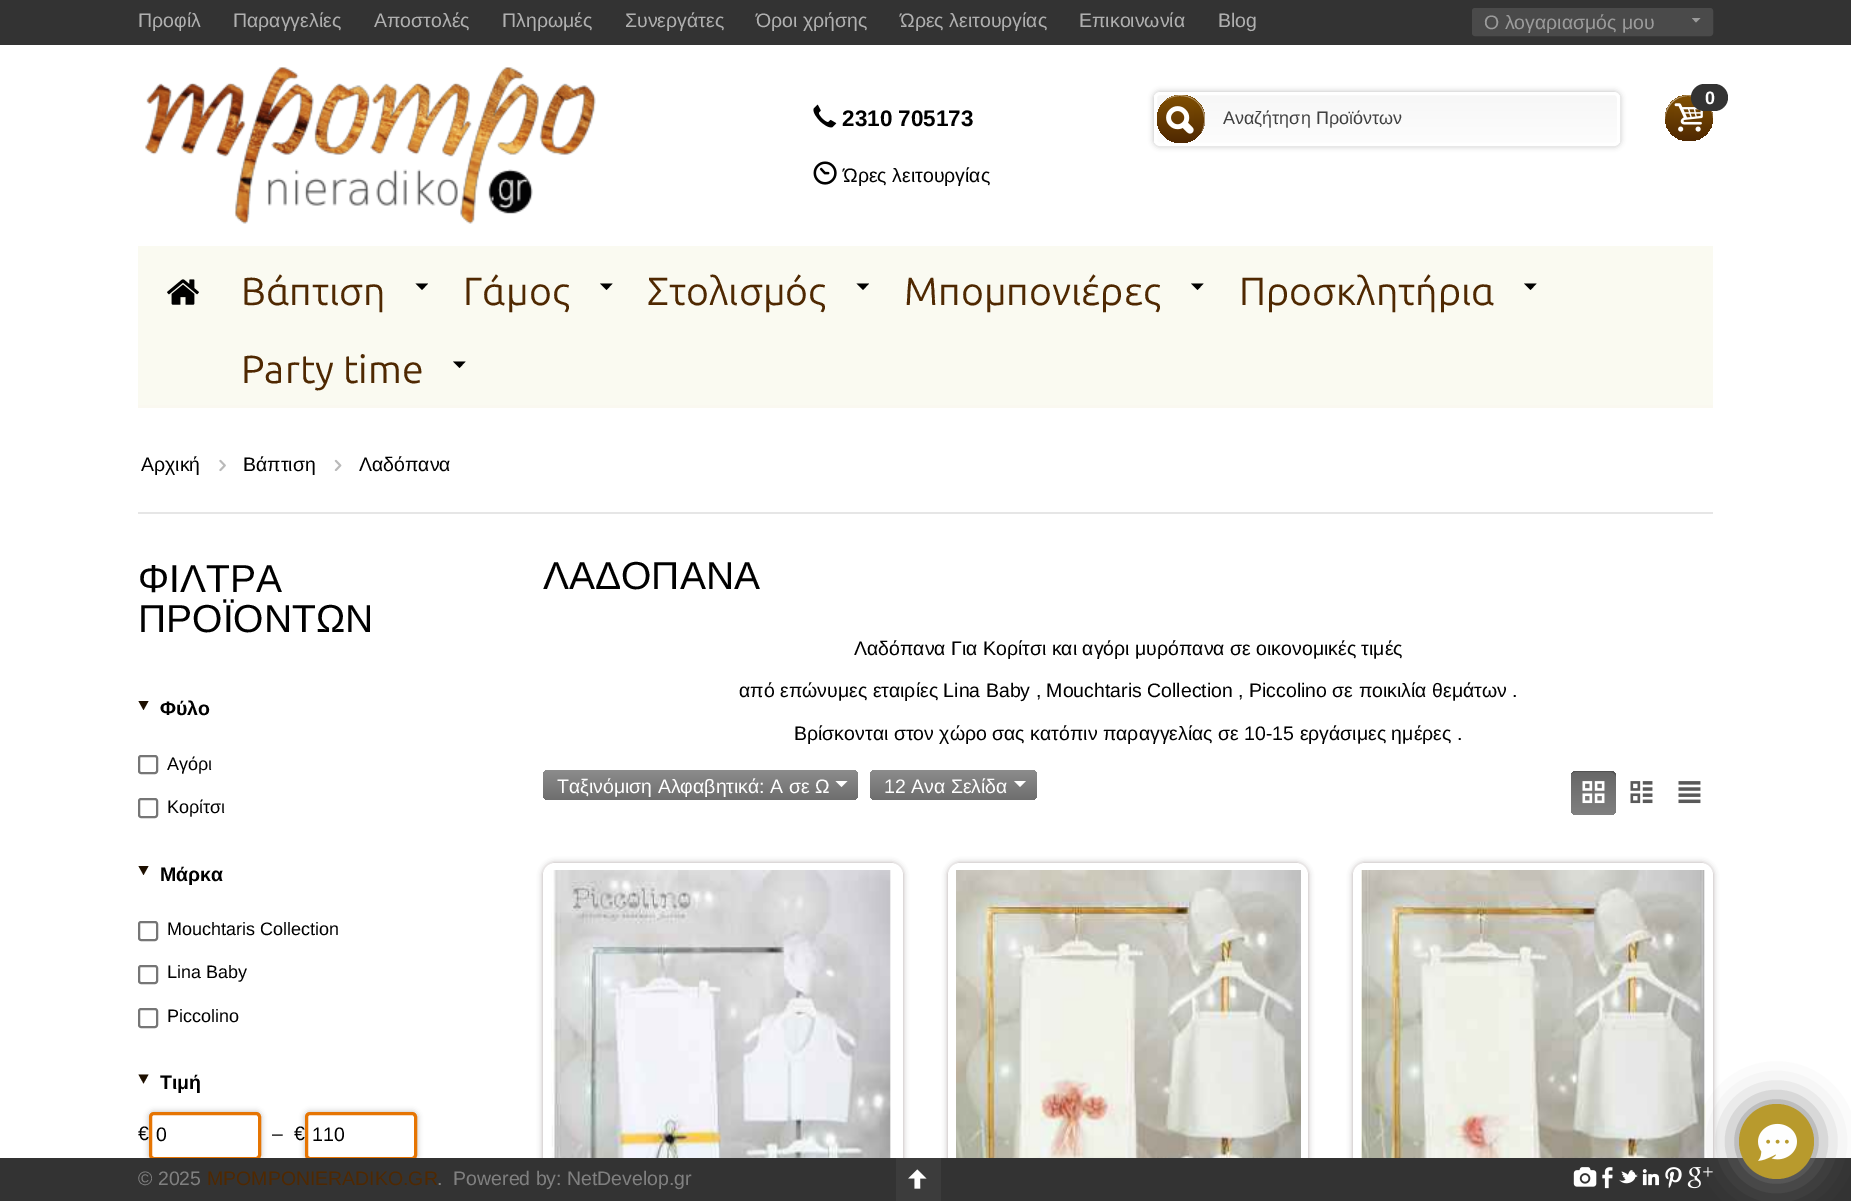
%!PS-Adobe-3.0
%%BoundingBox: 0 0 1851 1201
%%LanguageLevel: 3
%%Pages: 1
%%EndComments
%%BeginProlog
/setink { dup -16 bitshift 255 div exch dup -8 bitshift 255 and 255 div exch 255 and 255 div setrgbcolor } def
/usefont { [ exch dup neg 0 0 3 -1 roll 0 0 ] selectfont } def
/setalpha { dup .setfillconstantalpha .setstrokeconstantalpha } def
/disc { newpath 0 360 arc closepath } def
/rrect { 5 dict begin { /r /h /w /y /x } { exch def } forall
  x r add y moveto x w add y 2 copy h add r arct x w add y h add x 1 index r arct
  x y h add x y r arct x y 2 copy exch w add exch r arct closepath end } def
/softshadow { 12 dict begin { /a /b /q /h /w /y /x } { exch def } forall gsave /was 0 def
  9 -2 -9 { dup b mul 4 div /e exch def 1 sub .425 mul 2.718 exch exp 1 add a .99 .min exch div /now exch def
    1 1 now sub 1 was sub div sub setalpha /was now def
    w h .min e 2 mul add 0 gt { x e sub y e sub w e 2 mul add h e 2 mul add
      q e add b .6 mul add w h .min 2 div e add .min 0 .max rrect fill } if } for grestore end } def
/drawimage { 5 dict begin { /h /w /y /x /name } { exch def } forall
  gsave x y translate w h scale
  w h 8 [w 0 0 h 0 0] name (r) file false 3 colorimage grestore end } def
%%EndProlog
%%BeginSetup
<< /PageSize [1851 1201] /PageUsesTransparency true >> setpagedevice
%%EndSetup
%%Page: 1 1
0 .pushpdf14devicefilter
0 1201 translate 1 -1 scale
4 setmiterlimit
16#FFFFFF setink
0 0 1851 1201 rectfill
16#333333 setink
0 0 1851 45 rectfill
/LiberationSans-Regular 19.5 usefont
16#B0B0B0 setink
[
    [(Προφίλ) 138 27]
    [(Παραγγελίες) 233 27]
    [(Αποστολές) 374 27]
    [(Πληρωμές) 502 27]
    [(Συνεργάτες) 625 27]
    [(Όροι χρήσης) 756 27]
    [(Ώρες λειτουργίας) 900 27]
    [(Επικοινωνία) 1079 27]
    [(Blog) 1218 27]
] { aload pop moveto show } forall
16#4A4A4A setink
1473 9 239 26 2 rrect gsave fill grestore
2 setlinewidth
stroke
16#9B9B9B setink
1484 29 moveto (Ο λογαριασμός μου) show
1696 22.5 moveto 1692 18 lineto 1700.5 18 lineto closepath fill
(img1.raw) 145 67 451 157 drawimage
gsave 1665 95 48 46 23 rrect clip newpath
<< /ShadingType 2 /ColorSpace /DeviceRGB /Coords [1689 95 1689 141] /Extend [true true] /Function << /FunctionType 2 /Domain [0 1] /C0 [0.506 0.314 0.008] /C1 [0.31 0.157 0.004] /N 1 >> >> shfill grestore
0.45 setalpha
16#FFFFFF setink
1688 96 moveto 1704 96 1712 107 1713 118 curveto 1713 87 1664 88 1665 119 curveto 1666 107 1675 96 1688 96 curveto closepath fill
1 setalpha
(img2.raw) 1674 103 29 29 drawimage
16#333333 setink
1691 84 37 27 13.5 rrect fill
/LiberationSans-Bold 18 usefont
16#FFFFFF setink
1705 104 moveto (0) show
(img3.raw) 813 104 24 24 drawimage
/LiberationSans-Bold 22.5 usefont
16#000000 setink
842 126 moveto (2310 705173) show
(img4.raw) 813 161 24 24 drawimage
/LiberationSans-Regular 19.5 usefont
843 182 moveto (Ώρες λειτουργίας) show
1154 92 466 54 6 3 0.27 softshadow
gsave
1154 92 466 54 6 rrect clip newpath
gsave 1154 95 moveto 1620 95 lineto 1620 143 lineto 1154 143 lineto closepath clip newpath
<< /ShadingType 2 /ColorSpace /DeviceRGB /Coords [1387 94 1387 143] /Extend [true true] /Function << /FunctionType 2 /Domain [0 1] /C0 [0.969 0.969 0.969] /C1 [0.992 0.992 0.992] /N 1 >> >> shfill grestore
grestore
16#FFFFFF setink
3 setlinewidth
1155.5 93.5 463 51 4.5 rrect stroke
gsave 1181 119 24 disc clip newpath
<< /ShadingType 2 /ColorSpace /DeviceRGB /Coords [1181 95 1181 143] /Extend [true true] /Function << /FunctionType 2 /Domain [0 1] /C0 [0.506 0.314 0.008] /C1 [0.31 0.157 0.004] /N 1 >> >> shfill grestore
0.45 setalpha
1180 96 moveto 1202 96 1209 118 1201 133 curveto 1217 110 1186 83 1165 101 curveto 1169 98 1174 96 1180 96 curveto closepath fill
1 setalpha
(img5.raw) 1166 106 28 28 drawimage
/LiberationSans-Regular 18 usefont
16#404040 setink
1223 124 moveto (Αναζήτηση Προϊόντων) show
16#FAFAF1 setink
138 246 1575 159 rectfill
16#FAF8F0 setink
138 405 1575 3 rectfill
(img6.raw) 167 279 32 26 drawimage
/Ubuntu-Regular 39.25 usefont
16#4F2801 setink
241 305 moveto (Βάπτιση) show
16#000000 setink
422 290 moveto 415.5 283.5 lineto 428 283.5 lineto closepath fill
16#4F2801 setink
463 305 moveto (Γάμος) show
16#000000 setink
606.5 290 moveto 600 283.5 lineto 612.5 283.5 lineto closepath fill
16#4F2801 setink
647 305 moveto (Στολισμός) show
16#000000 setink
863 290 moveto 856.5 283.5 lineto 869 283.5 lineto closepath fill
16#4F2801 setink
904 305 moveto (Μπομπονιέρες) show
16#000000 setink
1197.5 290 moveto 1191 283.5 lineto 1203.5 283.5 lineto closepath fill
16#4F2801 setink
1239 305 moveto (Προσκλητήρια) show
16#000000 setink
1530.5 290 moveto 1524 283.5 lineto 1536.5 283.5 lineto closepath fill
16#4F2801 setink
241 383 moveto (Party time) show
16#000000 setink
459.5 368 moveto 453 361.5 lineto 465.5 361.5 lineto closepath fill
16#E6E6E6 setink
138 512 1575 2 rectfill
/LiberationSans-Regular 19.5 usefont
16#000000 setink
141 471 moveto (Αρχική) show
(img7.raw) 219 459 7 13 drawimage
243 471 moveto (Βάπτιση) show
(img8.raw) 334 459 8 12 drawimage
359 471 moveto (Λαδόπανα) show
/LiberationSans-Regular 39 usefont
138 592 moveto (ΦΙΛΤΡΑ) show
138 632 moveto (ΠΡΟΪΟΝΤΩΝ) show
16#1D0F00 setink
148.5 701 moveto 143.5 710 lineto 138.5 701 lineto closepath fill
/LiberationSans-Bold 19.5 usefont
16#000000 setink
160 715 moveto (Φύλο) show
16#767676 setink
2 setlinewidth
139 756 18 17 2 rrect stroke
/LiberationSans-Regular 18 usefont
16#000000 setink
167 770 moveto (Αγόρι) show
16#767676 setink
139 799 18 18 2 rrect stroke
16#000000 setink
167 813 moveto (Κορίτσι) show
16#1D0F00 setink
148.5 866 moveto 143.5 875 lineto 138.5 866 lineto closepath fill
/LiberationSans-Bold 19.5 usefont
16#000000 setink
160 881 moveto (Μάρκα) show
16#767676 setink
139 922 18 18 2 rrect stroke
/LiberationSans-Regular 18 usefont
16#000000 setink
167 935 moveto (Mouchtaris Collection) show
16#767676 setink
139 966 18 17 2 rrect stroke
16#000000 setink
167 978 moveto (Lina Baby) show
16#767676 setink
139 1009 18 18 2 rrect stroke
16#000000 setink
167 1022 moveto (Piccolino) show
16#1D0F00 setink
148.5 1074.5 moveto 143.5 1083.5 lineto 138.5 1074.5 lineto closepath fill
/LiberationSans-Bold 19.5 usefont
16#000000 setink
160 1089 moveto (Τιμή) show
/LiberationSans-Regular 19.5 usefont
138 1140 moveto (€) show
149 1112 112 48 5 3 0.27 softshadow
16#FFFFFF setink
150.5 1113.5 109 45 3.5 rrect gsave fill grestore
16#E67503 setink
3 setlinewidth
stroke
16#000000 setink
[
    [(0) 156 1141]
    [(–) 272 1140]
    [(€) 294 1140]
] { aload pop moveto show } forall
305 1112 112 48 5 3 0.27 softshadow
16#FFFFFF setink
306.5 1113.5 109 45 3.5 rrect gsave fill grestore
16#E67503 setink
stroke
16#000000 setink
312 1141 moveto (110) show
/LiberationSans-Regular 39 usefont
543 589 moveto (ΛΑΔΟΠΑΝΑ) show
/LiberationSans-Regular 19.5 usefont
[
    [(Λαδόπανα Για Κορίτσι και αγόρι μυρόπανα σε οικονομικές τιμές) 854 655]
    [(από επώνυμες εταιρίες Lina Baby , Mouchtaris Collection , Piccolino σε ποικιλία θεμάτων .) 739 697]
    [(Βρίσκονται στον χώρο σας κατόπιν παραγγελίας σε 10-15 εργάσιμες ημέρες .) 794 740]
] { aload pop moveto show } forall
gsave 543 770 315 30 5 rrect clip newpath
<< /ShadingType 2 /ColorSpace /DeviceRGB /Coords [701 770 701 800] /Extend [true true] /Function << /FunctionType 2 /Domain [0 1] /C0 [0.549 0.549 0.549] /C1 [0.431 0.431 0.431] /N 1 >> >> shfill grestore
16#FFFFFF setink
557 793 moveto (Ταξινόμιση Αλφαβητικά: A σε Ω) show
841.5 787 moveto 835.5 781 lineto 847.5 781 lineto closepath fill
gsave 870 770 167 30 5 rrect clip newpath
<< /ShadingType 2 /ColorSpace /DeviceRGB /Coords [953 770 953 800] /Extend [true true] /Function << /FunctionType 2 /Domain [0 1] /C0 [0.549 0.549 0.549] /C1 [0.431 0.431 0.431] /N 1 >> >> shfill grestore
884 793 moveto (12 Ανα Σελίδα) show
1020 787 moveto 1014 781 lineto 1026 781 lineto closepath fill
gsave 1571 771 45 44 5 rrect clip newpath
<< /ShadingType 2 /ColorSpace /DeviceRGB /Coords [1593 771 1593 815] /Extend [true true] /Function << /FunctionType 2 /Domain [0 1] /C0 [0.4 0.4 0.4] /C1 [0.502 0.502 0.502] /N 1 >> >> shfill grestore
0.2 setalpha
16#000000 setink
1575 772 moveto 1611 772 lineto 1613 772 1616 775 1616 777 curveto 1616 776 lineto 1616 773 1614 771 1611 771 curveto 1576 771 lineto 1574 771 1572 772 1571 774 curveto 1572 773 1574 772 1575 772 curveto closepath fill
1 setalpha
(img9.raw) 1582 781 23 23 drawimage
(img10.raw) 1630 781 23 23 drawimage
(img11.raw) 1678 781 23 23 drawimage
16#AFA6A6 setink
543 863 360 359 12 3 1 softshadow
16#FFFFFF setink
543 863 360 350 12 rrect fill
(img12.raw) 551 870 340 288 drawimage
16#AFA6A6 setink
948 863 360 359 12 3 1 softshadow
16#FFFFFF setink
948 863 360 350 12 rrect fill
(img13.raw) 956 870 345 288 drawimage
16#AFA6A6 setink
1353 863 360 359 12 3 1 softshadow
16#FFFFFF setink
1353 863 360 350 12 rrect fill
(img14.raw) 1361 870 345 288 drawimage
16#333333 setink
0 1158 1851 43 rectfill
16#808080 setink
138 1185 moveto (© 2025) show
16#4F2801 setink
207 1185 moveto (MPOMPONIERADIKO.GR) show
16#808080 setink
437 1185 moveto (.  Powered by: NetDevelop.gr) show
16#3C3C3C setink
896 1158 45 43 rectfill
(img15.raw) 908 1169 19 20 drawimage
(img16.raw) 1573 1167 24 20 drawimage
(img17.raw) 1602 1167 11 22 drawimage
(img18.raw) 1619 1170 19 14 drawimage
(img19.raw) 1642 1169 17 17 drawimage
(img20.raw) 1665 1167 17 21 drawimage
(img21.raw) 1687 1167 26 22 drawimage
16#7A7A7A setink
1739 1104 75 75 37.5 19 1 softshadow
16#B89A2D setink
1776.5 1141.5 37.5 disc fill
(img22.raw) 1758 1123 39 38 drawimage
.poppdf14devicefilter showpage
%%EOF
